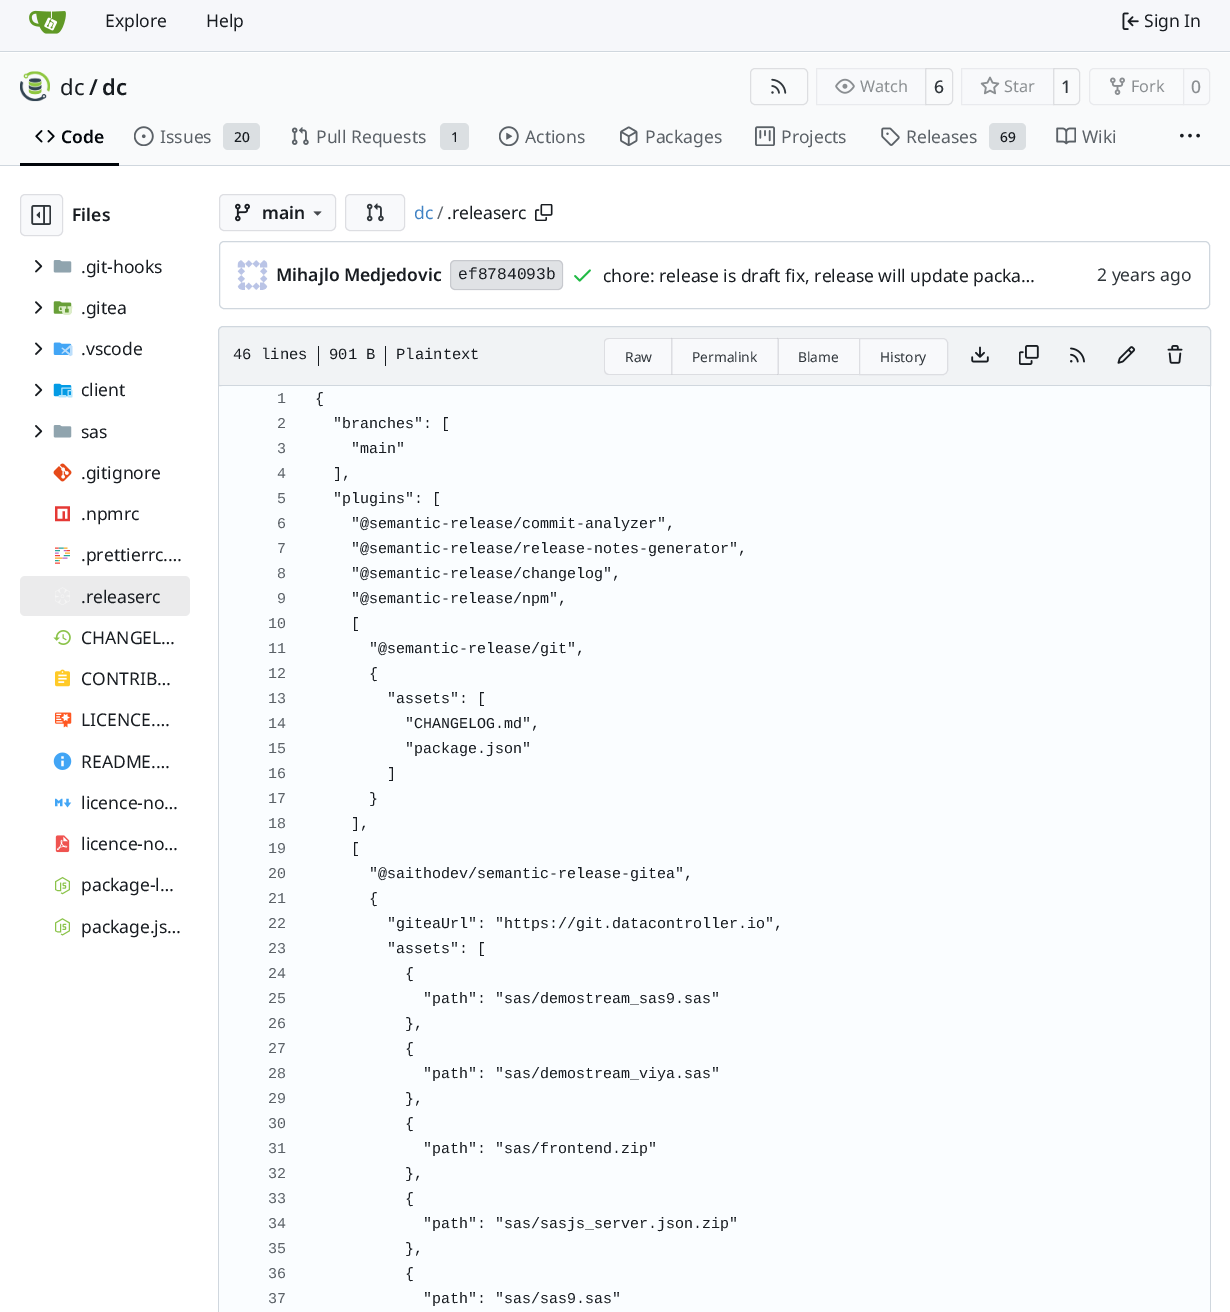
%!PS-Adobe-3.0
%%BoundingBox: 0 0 1230 1312
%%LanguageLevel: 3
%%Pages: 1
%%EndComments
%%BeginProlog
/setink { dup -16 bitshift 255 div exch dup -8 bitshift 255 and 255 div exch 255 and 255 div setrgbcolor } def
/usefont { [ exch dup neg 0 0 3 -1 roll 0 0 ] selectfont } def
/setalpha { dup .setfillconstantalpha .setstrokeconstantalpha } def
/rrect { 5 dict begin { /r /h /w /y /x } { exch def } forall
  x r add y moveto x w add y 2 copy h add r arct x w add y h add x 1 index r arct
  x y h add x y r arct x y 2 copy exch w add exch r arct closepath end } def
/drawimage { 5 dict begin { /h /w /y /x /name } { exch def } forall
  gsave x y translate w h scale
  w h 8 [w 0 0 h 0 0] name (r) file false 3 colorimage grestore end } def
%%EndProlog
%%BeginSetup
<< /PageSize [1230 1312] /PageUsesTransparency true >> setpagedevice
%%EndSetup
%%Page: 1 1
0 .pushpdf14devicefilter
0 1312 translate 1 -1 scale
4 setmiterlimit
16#FFFFFF setink
0 0 1230 1312 rectfill
16#F6F7FA setink
0 0 1230 51 rectfill
16#D0D7DE setink
0 51 1230 1 rectfill
(img1.raw) 29 10 37 24 drawimage
/NotoSans-Regular 17.5 usefont
16#181C21 setink
105 27 moveto (Explore) show
206 27 moveto (Help) show
(img2.raw) 1122 12 17 18 drawimage
1144 27 moveto (Sign In) show
16#F9FAFB setink
0 53 1230 112 rectfill
(img3.raw) 20 71 30 31 drawimage
/NotoSans-Regular 22 usefont
16#181C21 setink
60 95 moveto (dc) show
/NotoSans-SemiBold 22 usefont
89 95 moveto (/) show
102 95 moveto (dc) show
16#DDDEE1 setink
750.5 68.5 57 36 4.5 rrect stroke
(img4.raw) 771 78 16 16 drawimage
925.5 68.5 moveto 948 68.5 lineto 950.5 68.5 952.5 70.5 952.5 73 curveto 952.5 100 lineto 952.5 102.5 950.5 104.5 948 104.5 curveto 925.5 104.5 lineto closepath stroke
0.55 setalpha
16#F8F9FB setink
821 68 moveto 926 68 lineto 926 105 lineto 821 105 lineto 818 105 816 103 816 100 curveto 816 73 lineto 816 70 818 68 821 68 curveto closepath fill
0.06 setalpha
16#000017 setink
816.5 68.5 109 36 rectstroke
1 setalpha
(img5.raw) 835 78 20 16 drawimage
/NotoSans-Regular 16.25 usefont
16#8A8E91 setink
860 92 moveto (Watch) show
/NotoSans-Medium 17.5 usefont
16#30363B setink
934 93 moveto (6) show
16#DDDEE1 setink
1053.5 68.5 moveto 1075 68.5 lineto 1077.5 68.5 1079.5 70.5 1079.5 73 curveto 1079.5 100 lineto 1079.5 102.5 1077.5 104.5 1075 104.5 curveto 1053.5 104.5 lineto closepath stroke
0.55 setalpha
16#F8F9FB setink
966 68 moveto 1054 68 lineto 1054 105 lineto 966 105 lineto 963 105 961 103 961 100 curveto 961 73 lineto 961 70 963 68 966 68 curveto closepath fill
0.06 setalpha
16#000017 setink
961.5 68.5 92 36 rectstroke
1 setalpha
(img6.raw) 980 76 20 19 drawimage
/NotoSans-Regular 16.25 usefont
16#8A8E91 setink
1004 92 moveto (Star) show
/NotoSans-Medium 17.5 usefont
16#30363B setink
1061 93 moveto (1) show
16#E9EAED setink
1094 68.5 moveto 1183.5 68.5 lineto 1183.5 104.5 lineto 1094 104.5 lineto 1091.5 104.5 1089.5 102.5 1089.5 100 curveto 1089.5 73 lineto 1089.5 70.5 1091.5 68.5 1094 68.5 curveto closepath stroke
(img7.raw) 1110 77 15 18 drawimage
/NotoSans-Regular 16.25 usefont
16#8A8E91 setink
1131 92 moveto (Fork) show
16#F8F9FB setink
1183.5 68.5 moveto 1205 68.5 lineto 1207.5 68.5 1209.5 70.5 1209.5 73 curveto 1209.5 100 lineto 1209.5 102.5 1207.5 104.5 1205 104.5 curveto 1183.5 104.5 lineto closepath gsave fill grestore
16#E9EAED setink
stroke
/NotoSans-Medium 17.5 usefont
16#8A8E91 setink
1191 93 moveto (0) show
16#D0D7DE setink
0 165 1230 1 rectfill
16#01050A setink
20 163 99 3 rectfill
(img8.raw) 35 130 20 13 drawimage
/NotoSans-SemiBold 17.5 usefont
61 143 moveto (Code) show
(img9.raw) 134 126 20 20 drawimage
/NotoSans-Regular 17.5 usefont
16#5B6167 setink
160 143 moveto (Issues) show
16#DBDFE2 setink
223 123 37 27 5 rrect fill
/NotoSans-Medium 13.75 usefont
16#181C21 setink
234 142 moveto (20) show
(img10.raw) 291 127 18 18 drawimage
/NotoSans-Regular 17.5 usefont
16#5B6167 setink
316 143 moveto (Pull Requests) show
16#DBDFE2 setink
440 123 29 27 5 rrect fill
/NotoSans-Medium 13.75 usefont
16#181C21 setink
451 142 moveto (1) show
(img11.raw) 499 126 20 20 drawimage
/NotoSans-Regular 17.5 usefont
16#5B6167 setink
525 143 moveto (Actions) show
(img12.raw) 620 126 18 20 drawimage
645 143 moveto (Packages) show
(img13.raw) 755 126 20 20 drawimage
781 143 moveto (Projects) show
(img14.raw) 881 127 19 19 drawimage
906 143 moveto (Releases) show
16#DBDFE2 setink
989 123 37 27 5 rrect fill
/NotoSans-Medium 13.75 usefont
16#181C21 setink
1000 142 moveto (69) show
(img15.raw) 1056 127 20 18 drawimage
/NotoSans-Regular 17.5 usefont
16#5B6167 setink
1082 143 moveto (Wiki) show
(img16.raw) 1180 133 20 5 drawimage
16#F8F9FB setink
20 194 43 42 5 rrect fill
0.11 setalpha
16#000017 setink
20.5 194.5 42 41 4.5 rrect stroke
1 setalpha
(img17.raw) 31 205 20 20 drawimage
/NotoSans-SemiBold 17.5 usefont
16#181C21 setink
72 221 moveto (Files) show
(img18.raw) 35 260 8 13 drawimage
(img19.raw) 53 260 19 13 drawimage
/NotoSans-Regular 17.5 usefont
81 273 moveto (.git-hooks) show
(img20.raw) 35 301 8 13 drawimage
(img21.raw) 53 301 20 14 drawimage
81 314 moveto (.gitea) show
(img22.raw) 35 342 8 13 drawimage
(img23.raw) 53 342 20 15 drawimage
81 355 moveto (.vscode) show
(img24.raw) 35 383 8 14 drawimage
(img25.raw) 53 383 20 15 drawimage
81 396 moveto (client) show
(img18.raw) 35 425 8 13 drawimage
(img19.raw) 53 425 19 13 drawimage
81 438 moveto (sas) show
(img26.raw) 53 463 19 19 drawimage
81 479 moveto (.gitignore) show
(img27.raw) 55 506 15 16 drawimage
81 520 moveto (.npmrc) show
(img28.raw) 55 547 15 17 drawimage
81 561 moveto (.prettierrc.…) show
16#EBEBEC setink
20 576 170 40 5 rrect fill
(img29.raw) 55 587 15 18 drawimage
16#181C21 setink
81 603 moveto (.releaserc) show
(img30.raw) 53 630 18 15 drawimage
81 644 moveto (CHANGEL…) show
(img31.raw) 55 669 15 18 drawimage
81 685 moveto (CONTRIB…) show
(img32.raw) 55 712 17 16 drawimage
81 726 moveto (LICENCE.…) show
(img33.raw) 53 752 19 18 drawimage
81 768 moveto (README.…) show
(img34.raw) 55 798 17 10 drawimage
81 809 moveto (licence-no…) show
(img35.raw) 55 835 15 18 drawimage
81 850 moveto (licence-no…) show
(img36.raw) 55 876 15 19 drawimage
81 891 moveto (package-l…) show
(img37.raw) 55 918 15 18 drawimage
81 933 moveto (package.js…) show
16#F8F9FB setink
219 194 117 37 5 rrect fill
0.11 setalpha
16#000017 setink
219.5 194.5 116 36 4.5 rrect stroke
1 setalpha
(img38.raw) 235 203 15 19 drawimage
/NotoSans-SemiBold 17.5 usefont
16#181C21 setink
262 219 moveto (main) show
(img39.raw) 313 211 9 5 drawimage
16#F8F9FB setink
345 194 60 37 5 rrect fill
0.11 setalpha
16#000017 setink
345.5 194.5 59 36 4.5 rrect stroke
1 setalpha
(img40.raw) 366 203 18 19 drawimage
/NotoSans-Regular 17.5 usefont
16#4183C4 setink
414 219 moveto (dc) show
16#5B6167 setink
437 219 moveto (/) show
16#181C21 setink
447 219 moveto (.releaserc) show
(img41.raw) 535 204 18 17 drawimage
16#D0D7DE setink
219.5 241.5 990 67 4.5 rrect stroke
(img42.raw) 237 260 31 30 drawimage
/NotoSans-SemiBold 17.5 usefont
16#181C21 setink
276 281 moveto (Mihajlo Medjedovic) show
16#E0E2E5 setink
450 260 113 30 5 rrect fill
0.11 setalpha
16#000017 setink
450.5 260.5 112 29 4.5 rrect stroke
/LiberationMono-Regular 16.25 usefont
1 setalpha
16#181C21 setink
458 279 moveto (ef8784093b) show
(img43.raw) 574 269 17 13 drawimage
/NotoSans-Regular 17.5 usefont
603 282 moveto (chore: release is draft fix, release will update packa…) show
16#30363B setink
1097 281 moveto (2 years ago) show
16#F1F3F5 setink
223 326.5 moveto 1206 326.5 lineto 1208.5 326.5 1210.5 328.5 1210.5 331 curveto 1210.5 385.5 lineto 218.5 385.5 lineto 218.5 331 lineto 218.5 328.5 220.5 326.5 223 326.5 curveto closepath gsave fill grestore
16#D0D7DE setink
stroke
/LiberationMono-Regular 15.5 usefont
16#181C21 setink
233 359 moveto (46 lines) show
318 346 1 20 rectfill
329 359 moveto (901 B) show
385 346 1 20 rectfill
396 359 moveto (Plaintext) show
16#F8F9FB setink
609 338 moveto 671 338 lineto 671 375 lineto 609 375 lineto 606 375 604 373 604 370 curveto 604 343 lineto 604 340 606 338 609 338 curveto closepath fill
0.11 setalpha
16#000017 setink
609 338 moveto 671 338 lineto 671 375 lineto 609 375 lineto 606 375 604 373 604 370 curveto 604 342 lineto 604 340 606 338 609 338 curveto closepath 609 339 moveto 671 339 lineto 671 374 lineto 609 374 lineto 607 374 605 372 605 370 curveto 605 342 lineto 605 340 607 339 609 339 curveto closepath eofill
/NotoSans-Regular 13.75 usefont
1 setalpha
16#30363B setink
625 362 moveto (Raw) show
16#F8F9FB setink
671 338 188 37 rectfill
16#DCDDE1 setink
671 338 moveto 778 338 lineto 778 339 lineto 672 339 lineto closepath fill
778 375 moveto 671 375 lineto 672 374 lineto 778 374 lineto closepath fill
0.11 setalpha
16#000017 setink
671 375 moveto 671 337.5 lineto 672.5 339 lineto 672.5 374 lineto closepath fill
1 setalpha
16#30363B setink
692 362 moveto (Permalink) show
16#DCDDE1 setink
778 338 moveto 859 338 lineto 859 339 lineto 779 339 lineto closepath fill
859 375 moveto 778 375 lineto 779 374 lineto 859 374 lineto closepath fill
0.11 setalpha
16#000017 setink
777.5 375 moveto 777.5 337.5 lineto 779 339 lineto 779 374 lineto closepath fill
1 setalpha
16#30363B setink
798 362 moveto (Blame) show
16#F8F9FB setink
859 338 moveto 943 338 lineto 946 338 948 340 948 343 curveto 948 370 lineto 948 373 946 375 943 375 curveto 859 375 lineto closepath fill
0.11 setalpha
16#000017 setink
859.5 338.5 moveto 943 338.5 lineto 945.5 338.5 947.5 340.5 947.5 343 curveto 947.5 370 lineto 947.5 372.5 945.5 374.5 943 374.5 curveto 859.5 374.5 lineto closepath stroke
1 setalpha
16#30363B setink
880 362 moveto (History) show
(img44.raw) 971 346 18 17 drawimage
(img45.raw) 1019 345 20 20 drawimage
(img46.raw) 1070 347 15 16 drawimage
(img47.raw) 1117 346 19 18 drawimage
(img48.raw) 1167 345 16 19 drawimage
16#D0D7DE setink
218 386 moveto 1211 386 lineto 1211 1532 lineto 1211 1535 1209 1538 1206 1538 curveto 222 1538 lineto 220 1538 218 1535 218 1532 curveto closepath 219 386 moveto 1210 386 lineto 1210 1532 lineto 1210 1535 1208 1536 1206 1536 curveto 222 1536 lineto 220 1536 219 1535 219 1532 curveto closepath eofill
16#FAFDFF setink
219 386 991 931 5 rrect fill
/LiberationMono-Regular 15 usefont
16#5B6167 setink
277 403 moveto (1) show
16#181C21 setink
315 403 moveto ({) show
16#5B6167 setink
277 428 moveto (2) show
16#181C21 setink
333 428 moveto ("branches": [) show
16#5B6167 setink
277 453 moveto (3) show
16#181C21 setink
351 453 moveto ("main") show
16#5B6167 setink
277 478 moveto (4) show
16#181C21 setink
333 478 moveto (],) show
16#5B6167 setink
277 503 moveto (5) show
16#181C21 setink
333 503 moveto ("plugins": [) show
16#5B6167 setink
277 528 moveto (6) show
16#181C21 setink
351 528 moveto ("@semantic-release/commit-analyzer",) show
16#5B6167 setink
277 553 moveto (7) show
16#181C21 setink
351 553 moveto ("@semantic-release/release-notes-generator",) show
16#5B6167 setink
277 578 moveto (8) show
16#181C21 setink
351 578 moveto ("@semantic-release/changelog",) show
16#5B6167 setink
277 603 moveto (9) show
16#181C21 setink
351 603 moveto ("@semantic-release/npm",) show
16#5B6167 setink
268 628 moveto (10) show
16#181C21 setink
351 628 moveto ([) show
16#5B6167 setink
268 653 moveto (11) show
16#181C21 setink
369 653 moveto ("@semantic-release/git",) show
16#5B6167 setink
268 678 moveto (12) show
16#181C21 setink
369 678 moveto ({) show
16#5B6167 setink
268 703 moveto (13) show
16#181C21 setink
387 703 moveto ("assets": [) show
16#5B6167 setink
268 728 moveto (14) show
16#181C21 setink
405 728 moveto ("CHANGELOG.md",) show
16#5B6167 setink
268 753 moveto (15) show
16#181C21 setink
405 753 moveto ("package.json") show
16#5B6167 setink
268 778 moveto (16) show
16#181C21 setink
387 778 moveto (]) show
16#5B6167 setink
268 803 moveto (17) show
16#181C21 setink
369 803 moveto (}) show
16#5B6167 setink
268 828 moveto (18) show
16#181C21 setink
351 828 moveto (],) show
16#5B6167 setink
268 853 moveto (19) show
16#181C21 setink
351 853 moveto ([) show
16#5B6167 setink
268 878 moveto (20) show
16#181C21 setink
369 878 moveto ("@saithodev/semantic-release-gitea",) show
16#5B6167 setink
268 903 moveto (21) show
16#181C21 setink
369 903 moveto ({) show
16#5B6167 setink
268 928 moveto (22) show
16#181C21 setink
387 928 moveto ("giteaUrl": "https://git.datacontroller.io",) show
16#5B6167 setink
268 953 moveto (23) show
16#181C21 setink
387 953 moveto ("assets": [) show
16#5B6167 setink
268 978 moveto (24) show
16#181C21 setink
405 978 moveto ({) show
16#5B6167 setink
268 1003 moveto (25) show
16#181C21 setink
423 1003 moveto ("path": "sas/demostream_sas9.sas") show
16#5B6167 setink
268 1028 moveto (26) show
16#181C21 setink
405 1028 moveto (},) show
16#5B6167 setink
268 1053 moveto (27) show
16#181C21 setink
405 1053 moveto ({) show
16#5B6167 setink
268 1078 moveto (28) show
16#181C21 setink
423 1078 moveto ("path": "sas/demostream_viya.sas") show
16#5B6167 setink
268 1103 moveto (29) show
16#181C21 setink
405 1103 moveto (},) show
16#5B6167 setink
268 1128 moveto (30) show
16#181C21 setink
405 1128 moveto ({) show
16#5B6167 setink
268 1153 moveto (31) show
16#181C21 setink
423 1153 moveto ("path": "sas/frontend.zip") show
16#5B6167 setink
268 1178 moveto (32) show
16#181C21 setink
405 1178 moveto (},) show
16#5B6167 setink
268 1203 moveto (33) show
16#181C21 setink
405 1203 moveto ({) show
16#5B6167 setink
268 1228 moveto (34) show
16#181C21 setink
423 1228 moveto ("path": "sas/sasjs_server.json.zip") show
16#5B6167 setink
268 1253 moveto (35) show
16#181C21 setink
405 1253 moveto (},) show
16#5B6167 setink
268 1278 moveto (36) show
16#181C21 setink
405 1278 moveto ({) show
16#5B6167 setink
268 1303 moveto (37) show
16#181C21 setink
423 1303 moveto ("path": "sas/sas9.sas") show
.poppdf14devicefilter showpage
%%EOF
